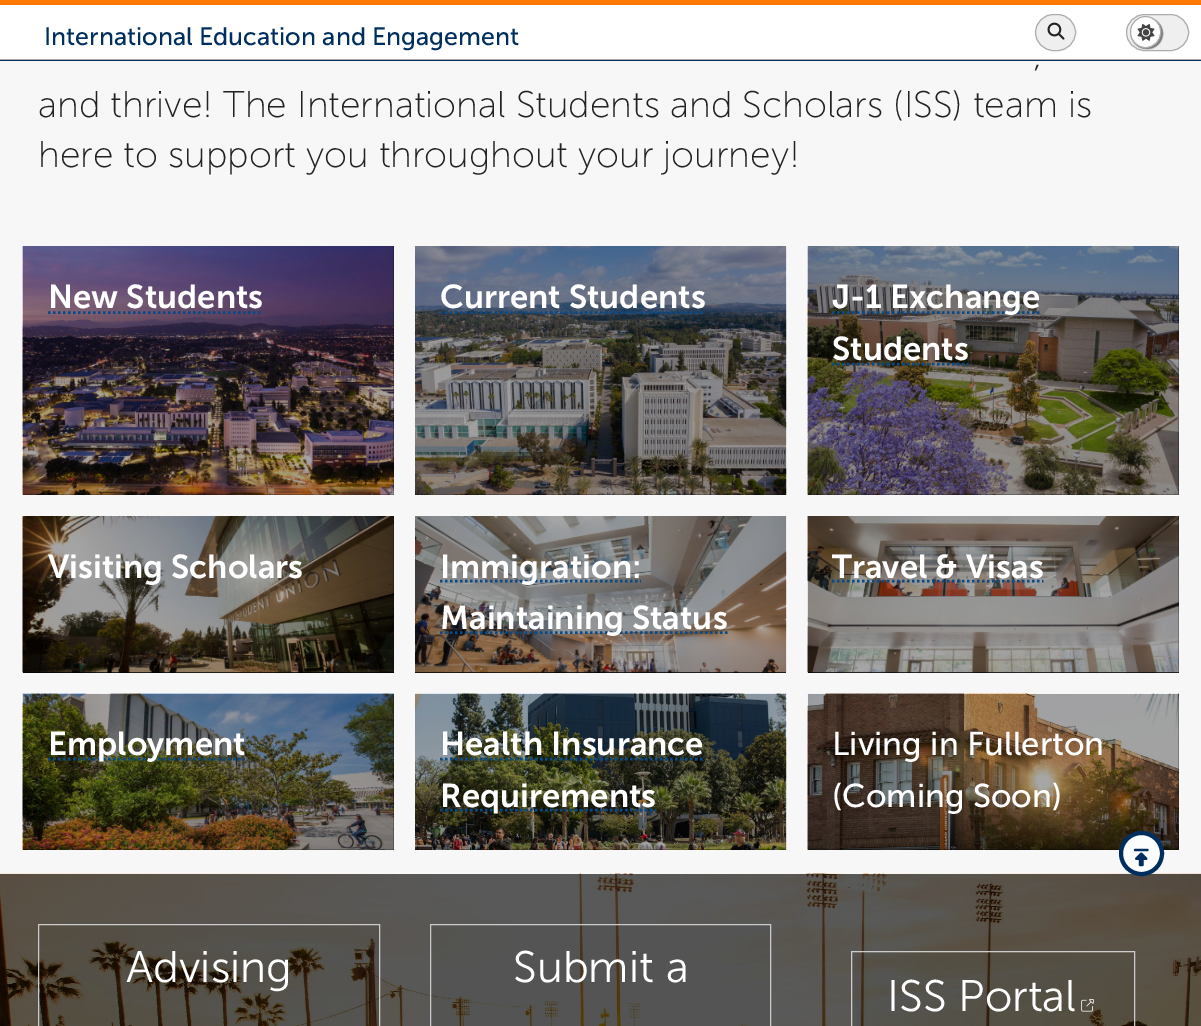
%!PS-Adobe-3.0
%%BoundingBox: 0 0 1201 1026
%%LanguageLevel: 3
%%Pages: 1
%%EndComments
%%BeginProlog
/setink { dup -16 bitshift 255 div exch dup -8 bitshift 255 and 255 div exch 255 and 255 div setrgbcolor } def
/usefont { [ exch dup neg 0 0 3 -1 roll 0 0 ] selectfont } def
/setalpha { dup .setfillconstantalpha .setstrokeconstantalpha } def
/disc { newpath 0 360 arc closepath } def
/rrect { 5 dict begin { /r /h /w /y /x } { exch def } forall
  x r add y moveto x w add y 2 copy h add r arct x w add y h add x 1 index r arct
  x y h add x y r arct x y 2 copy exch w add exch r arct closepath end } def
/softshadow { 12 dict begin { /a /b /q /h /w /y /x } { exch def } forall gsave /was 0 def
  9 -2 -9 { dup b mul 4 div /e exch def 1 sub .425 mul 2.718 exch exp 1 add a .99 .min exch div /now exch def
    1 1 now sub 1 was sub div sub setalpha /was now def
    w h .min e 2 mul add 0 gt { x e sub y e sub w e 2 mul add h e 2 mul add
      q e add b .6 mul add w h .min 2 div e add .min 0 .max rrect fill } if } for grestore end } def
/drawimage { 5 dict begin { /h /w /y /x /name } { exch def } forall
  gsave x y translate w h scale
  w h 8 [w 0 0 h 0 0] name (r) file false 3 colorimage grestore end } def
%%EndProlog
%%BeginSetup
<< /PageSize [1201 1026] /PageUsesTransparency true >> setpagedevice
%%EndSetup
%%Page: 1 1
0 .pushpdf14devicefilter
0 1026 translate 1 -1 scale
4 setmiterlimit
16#F7F7F7 setink
0 0 1201 1026 rectfill
[
    [0 0 1201 5 16#FF7900]
    [0 5 1201 54 16#FFFFFF]
    [0 59 1201 1 16#ACACAA]
] { aload pop setink rectfill } forall
/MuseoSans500-Regular 25 usefont
16#002F5F setink
44 45 moveto (International Education and Engagement) show
16#EFEFEF setink
1035.5 14.5 40 36 18 rrect gsave fill grestore
16#ACACAA setink
stroke
(img1.raw) 1047 22 18 18 drawimage
16#EFEFEF setink
1126.5 14.5 62 36 18 rrect gsave fill grestore
16#ACACAA setink
stroke
16#000000 setink
1131 18 32 31 15.5 0.5 0.5 softshadow
16#FFFFFF setink
1130.5 16.5 30 31 15 rrect gsave fill grestore
16#ACACAA setink
stroke
(img2.raw) 1137 23 18 18 drawimage
16#002F5F setink
0 60 1201 1 rectfill
/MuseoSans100-Light 37 usefont
16#222222 setink
[
    [(,) 1033 67]
    [(and thrive! The International Students and Scholars \(ISS\) team is) 38 117]
    [(here to support you throughout your journey!) 38 167]
] { aload pop moveto show } forall
16#000000 setink
23 246 371 249 rectfill
(img3.raw) 22 246 372 249 drawimage
/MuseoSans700-SemiBold 33 usefont
16#FFFFFF setink
48 308 moveto (New Students) show
16#084B8A setink
2.5 setlinewidth
[2.5 2.5] 0 setdash
48 312.5 moveto 263 312.5 lineto stroke
(img4.raw) 415 246 372 249 drawimage
16#FFFFFF setink
440 308 moveto (Current Students) show
16#084B8A setink
440 312.5 moveto 705 312.5 lineto stroke
16#000000 setink
808 246 371 249 rectfill
(img5.raw) 807 246 372 249 drawimage
16#084B8A setink
832 312.5 moveto 1040.5 312.5 lineto stroke
16#FFFFFF setink
832 308 moveto (J-1 Exchange) show
832 360 moveto (Students) show
16#084B8A setink
832 364 moveto 968.5 364 lineto stroke
16#000000 setink
23 516 371 157 rectfill
(img6.raw) 22 516 372 157 drawimage
16#FFFFFF setink
48 578 moveto (Visiting Scholars) show
16#000000 setink
415 672 371 1 rectfill
(img7.raw) 415 516 372 157 drawimage
16#084B8A setink
440 581 moveto 641 581 lineto stroke
16#FFFFFF setink
440 578 moveto (Immigration:) show
16#084B8A setink
440 632.5 moveto 727.5 632.5 lineto stroke
16#FFFFFF setink
440 629 moveto (Maintaining Status) show
16#000000 setink
808 516 371 157 rectfill
(img8.raw) 807 516 372 157 drawimage
16#FFFFFF setink
832 578 moveto (Travel & Visas) show
16#084B8A setink
832 581 moveto 1043.5 581 lineto stroke
16#000000 setink
23 694 371 156 rectfill
(img9.raw) 22 693 372 157 drawimage
16#084B8A setink
48 759 moveto 245 759 lineto stroke
16#FFFFFF setink
48 755 moveto (Employment) show
(img10.raw) 415 693 372 157 drawimage
440 755 moveto (Health Insurance) show
16#084B8A setink
440 759 moveto 703.5 759 lineto stroke
440 810 moveto 656 810 lineto stroke
16#FFFFFF setink
440 807 moveto (Requirements) show
16#000000 setink
808 694 371 156 rectfill
(img11.raw) 807 693 372 157 drawimage
/MuseoSans500-Regular 33 usefont
16#FFFFFF setink
832 755 moveto (Living in Fullerton) show
832 807 moveto (\(Coming Soon\)) show
(img12.raw) 0 873 1201 153 drawimage
16#CCCCCC setink
1 setlinewidth
[] 0 setdash
38.5 924.5 341 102 rectstroke
0.05 setalpha
16#000000 setink
39 925 340 101 rectfill
/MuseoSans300-Light 44 usefont
1 setalpha
16#FFFFFF setink
126 982 moveto (Advising) show
16#CCCCCC setink
430.5 924.5 340 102 rectstroke
0.05 setalpha
16#000000 setink
431 925 339 101 rectfill
1 setalpha
16#FFFFFF setink
513 982 moveto (Submit a) show
16#CCCCCC setink
851.5 951.5 283 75 rectstroke
0.05 setalpha
16#000000 setink
853 953 281 73 rectfill
1 setalpha
16#FFFFFF setink
887 1011 moveto (ISS Portal) show
(img13.raw) 1081 999 13 13 drawimage
16#FDFDFD setink
1141.5 853.5 20.5 disc gsave fill grestore
16#002F5F setink
4 setlinewidth
stroke
(img14.raw) 1133 848 16 19 drawimage
.poppdf14devicefilter showpage
%%EOF
